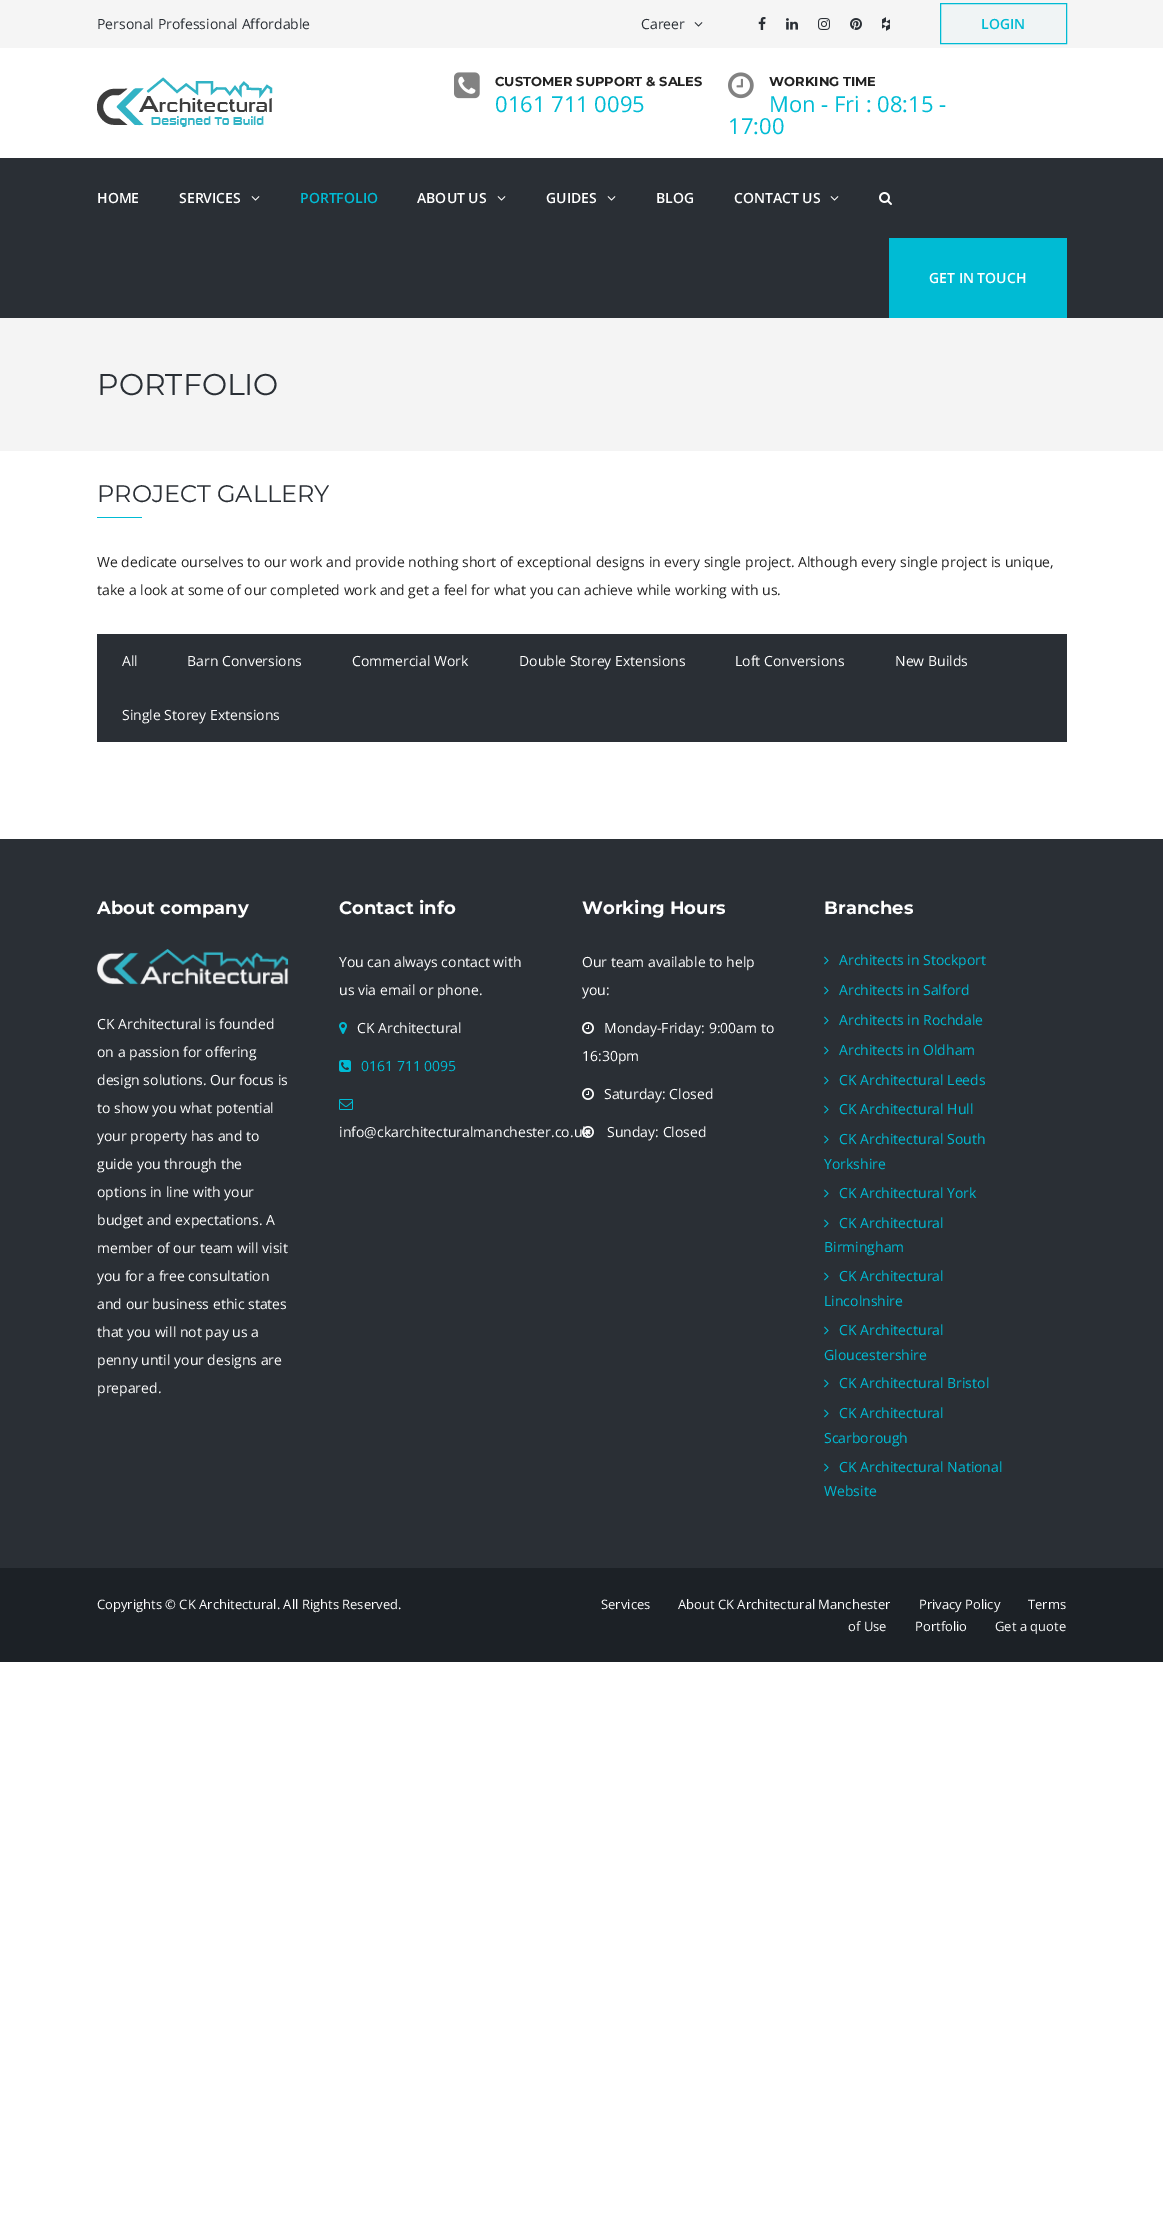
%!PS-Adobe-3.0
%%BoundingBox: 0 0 1163 2237
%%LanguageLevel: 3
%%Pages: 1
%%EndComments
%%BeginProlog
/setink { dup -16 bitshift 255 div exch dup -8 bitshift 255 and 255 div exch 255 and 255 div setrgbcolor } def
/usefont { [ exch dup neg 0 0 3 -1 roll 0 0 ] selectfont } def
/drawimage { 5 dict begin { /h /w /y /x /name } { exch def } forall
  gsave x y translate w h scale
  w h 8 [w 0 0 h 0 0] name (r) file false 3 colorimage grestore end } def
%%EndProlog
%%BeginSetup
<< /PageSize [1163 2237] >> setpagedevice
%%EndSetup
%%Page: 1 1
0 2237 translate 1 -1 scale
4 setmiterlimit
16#FFFFFF setink
0 0 1163 2237 rectfill
16#F5F5F5 setink
0 0 1163 48 rectfill
/OpenSans-Regular 14 usefont
16#2A2F35 setink
97 29 moveto (Personal Professional Affordable) show
641 29 moveto (Career) show
(img1.raw) 694 22 9 5 drawimage
(img2.raw) 758 17 8 13 drawimage
(img3.raw) 786 18 12 12 drawimage
(img4.raw) 818 18 12 12 drawimage
(img5.raw) 850 18 12 12 drawimage
(img6.raw) 882 17 8 14 drawimage
16#F0F4F5 setink
940.5 3.5 moveto 1066.5 3.5 lineto 1066.5 43.5 lineto 940.5 43.5 lineto closepath gsave fill grestore
16#00BBD4 setink
stroke
/OpenSans-SemiBold 14 usefont
981 29 moveto (LOGIN) show
(img7.raw) 97 77 176 50 drawimage
(img8.raw) 454 72 26 27 drawimage
/Montserrat-Bold 13 usefont
16#222222 setink
495 86 moveto (CUSTOMER SUPPORT & SALES) show
/OpenSans-Regular 22 usefont
16#00BBD4 setink
495 112 moveto (0161 711 0095) show
(img9.raw) 728 72 26 27 drawimage
/Montserrat-Bold 13 usefont
16#222222 setink
769 86 moveto (WORKING TIME) show
/OpenSans-Regular 22 usefont
16#00BBD4 setink
769 112 moveto (Mon - Fri : 08:15 -) show
728 134 moveto (17:00) show
16#2A2F35 setink
0 158 1163 160 rectfill
/OpenSans-SemiBold 14 usefont
16#FFFFFF setink
97 203 moveto (HOME) show
179 203 moveto (SERVICES) show
(img10.raw) 251 196 9 5 drawimage
16#00BBD4 setink
300 203 moveto (PORTFOLIO) show
16#FFFFFF setink
417 203 moveto (ABOUT US) show
(img10.raw) 497 196 9 5 drawimage
546 203 moveto (GUIDES) show
(img10.raw) 607 196 9 5 drawimage
656 203 moveto (BLOG) show
734 203 moveto (CONTACT US) show
(img10.raw) 830 196 9 5 drawimage
(img11.raw) 879 192 13 13 drawimage
16#00BBD4 setink
889 238 178 80 rectfill
16#FFFFFF setink
929 283 moveto (GET IN TOUCH) show
16#F4F4F4 setink
0 318 1163 133 rectfill
/Montserrat-Regular 30 usefont
16#2A2F35 setink
97 395 moveto (PORTFOLIO) show
/Montserrat-Regular 24 usefont
97 502 moveto (PROJECT GALLERY) show
16#00BBD4 setink
97 517 45 1 rectfill
/OpenSans-Regular 14 usefont
16#222222 setink
97 567 moveto (We dedicate ourselves to our work and provide nothing short of exceptional designs in every single project. Although every single project is unique,) show
97 595 moveto (take a look at some of our completed work and get a feel for what you can achieve while working with us.) show
16#2A2F35 setink
97 634 970 108 rectfill
16#FFFFFF setink
[
    [(All) 122 666]
    [(Barn Conversions) 187 666]
    [(Commercial Work) 352 666]
    [(Double Storey Extensions) 519 666]
    [(Loft Conversions) 735 666]
    [(New Builds) 895 666]
    [(Single Storey Extensions) 122 720]
] { aload pop moveto show } forall
16#2A2F35 setink
0 839 1163 729 rectfill
/Montserrat-Bold 18 usefont
16#FFFFFF setink
97 914 moveto (About company) show
(img12.raw) 97 949 192 36 drawimage
/OpenSans-Regular 14 usefont
[
    [(CK Architectural is founded) 97 1029]
    [(on a passion for offering) 97 1057]
    [(design solutions. Our focus is) 97 1085]
    [(to show you what potential) 97 1113]
    [(your property has and to) 97 1141]
    [(guide you through the) 97 1169]
    [(options in line with your) 97 1197]
    [(budget and expectations. A) 97 1225]
    [(member of our team will visit) 97 1253]
    [(you for a free consultation) 97 1281]
    [(and our business ethic states) 97 1309]
    [(that you will not pay us a) 97 1337]
    [(penny until your designs are) 97 1365]
    [(prepared.) 97 1393]
] { aload pop moveto show } forall
/Montserrat-Bold 18 usefont
339 914 moveto (Contact info) show
/OpenSans-Regular 14 usefont
339 967 moveto (You can always contact with) show
339 995 moveto (us via email or phone.) show
(img13.raw) 339 1022 8 12 drawimage
357 1033 moveto (CK Architectural) show
(img14.raw) 339 1060 12 12 drawimage
16#00BBD4 setink
361 1071 moveto (0161 711 0095) show
(img15.raw) 339 1099 14 11 drawimage
16#FFFFFF setink
339 1137 moveto (info@ckarchitecturalmanchester.co.u) show
/Montserrat-Bold 18 usefont
582 914 moveto (Working Hours) show
/OpenSans-Regular 14 usefont
582 967 moveto (Our team available to help) show
582 995 moveto (you:) show
(img16.raw) 582 1022 12 12 drawimage
604 1033 moveto (Monday-Friday: 9:00am to) show
582 1061 moveto (16:30pm) show
(img16.raw) 582 1088 12 12 drawimage
604 1099 moveto (Saturday: Closed) show
(img17.raw) 582 1126 12 12 drawimage
607 1137 moveto (Sunday: Closed) show
/Montserrat-Bold 18 usefont
824 914 moveto (Branches) show
(img18.raw) 824 956 5 9 drawimage
/OpenSans-Regular 14 usefont
16#00BBD4 setink
839 965 moveto (Architects in Stockport) show
(img18.raw) 824 986 5 9 drawimage
839 995 moveto (Architects in Salford) show
(img18.raw) 824 1016 5 9 drawimage
839 1025 moveto (Architects in Rochdale) show
(img18.raw) 824 1046 5 9 drawimage
839 1055 moveto (Architects in Oldham) show
(img18.raw) 824 1076 5 9 drawimage
839 1085 moveto (CK Architectural Leeds) show
(img18.raw) 824 1105 5 9 drawimage
839 1114 moveto (CK Architectural Hull) show
(img18.raw) 824 1135 5 9 drawimage
839 1144 moveto (CK Architectural South) show
824 1169 moveto (Yorkshire) show
(img18.raw) 824 1189 5 9 drawimage
839 1198 moveto (CK Architectural York) show
(img18.raw) 824 1219 5 9 drawimage
839 1228 moveto (CK Architectural) show
824 1252 moveto (Birmingham) show
(img18.raw) 824 1272 5 9 drawimage
839 1281 moveto (CK Architectural) show
824 1306 moveto (Lincolnshire) show
(img18.raw) 824 1326 5 9 drawimage
839 1335 moveto (CK Architectural) show
824 1360 moveto (Gloucestershire) show
(img18.raw) 824 1379 5 9 drawimage
839 1388 moveto (CK Architectural Bristol) show
(img18.raw) 824 1409 5 9 drawimage
839 1418 moveto (CK Architectural) show
824 1443 moveto (Scarborough) show
(img18.raw) 824 1463 5 9 drawimage
839 1472 moveto (CK Architectural National) show
824 1496 moveto (Website) show
16#1C2126 setink
0 1568 1163 94 rectfill
/OpenSans-Regular 13 usefont
16#FFFFFF setink
[
    [(Copyrights © CK Architectural. All Rights Reserved.) 97 1609]
    [(Services) 601 1609]
    [(About CK Architectural Manchester) 678 1609]
    [(Privacy Policy) 919 1609]
    [(Terms) 1028 1609]
    [(of Use) 848 1631]
    [(Portfolio) 915 1631]
    [(Get a quote) 995 1631]
] { aload pop moveto show } forall
showpage
%%EOF
